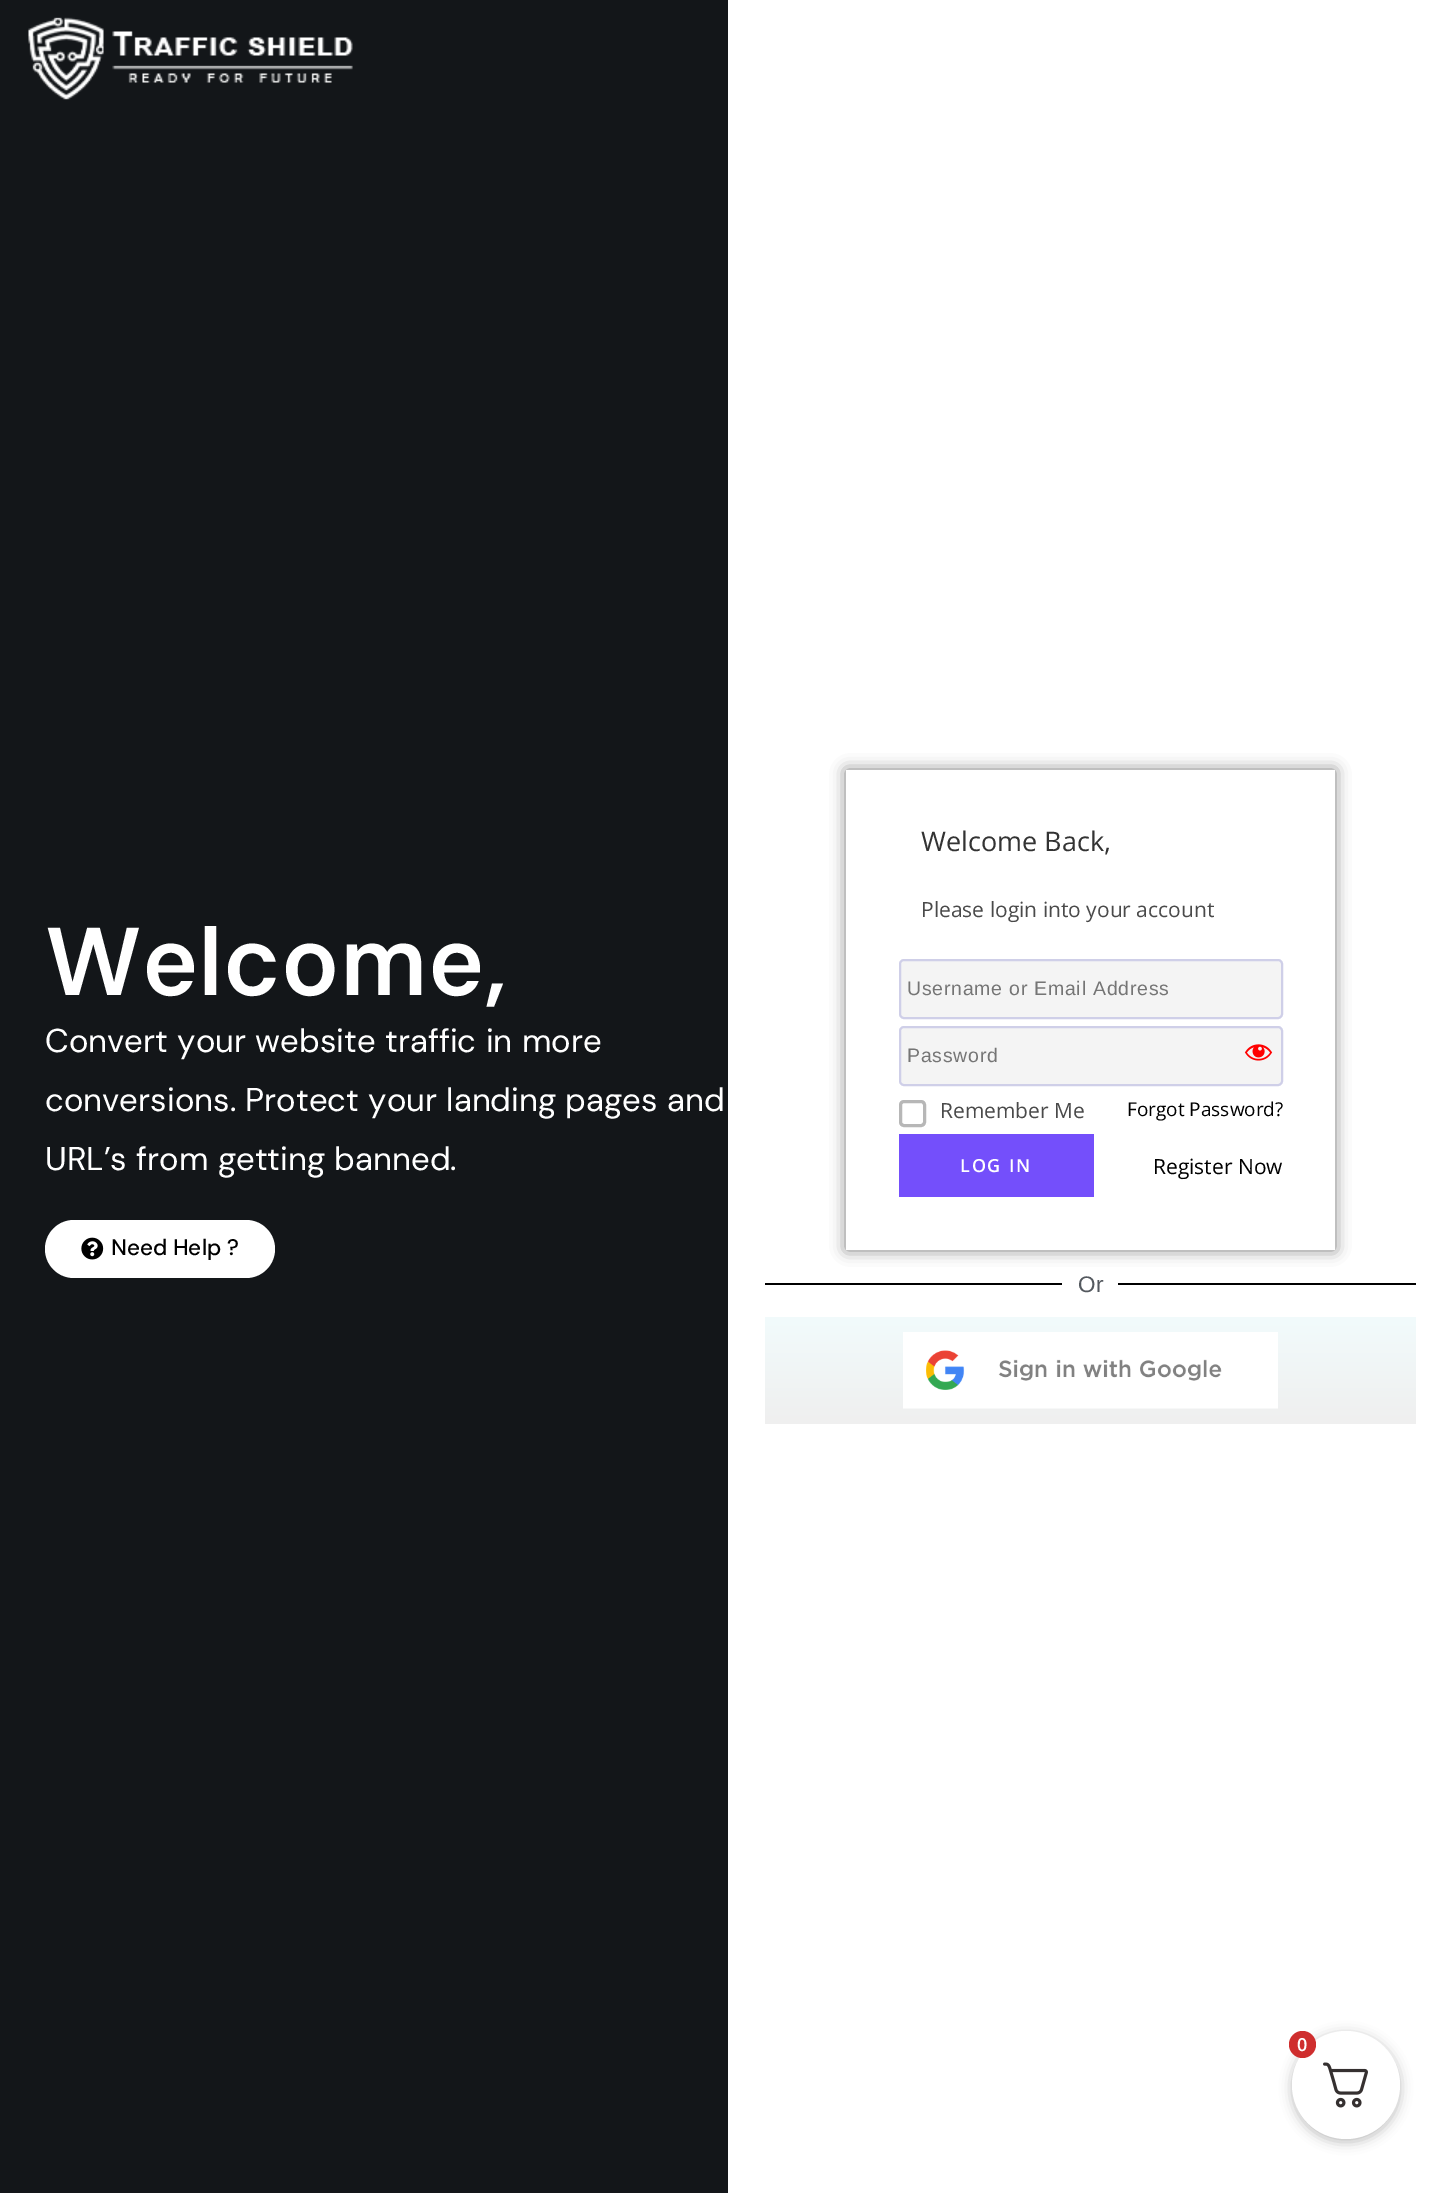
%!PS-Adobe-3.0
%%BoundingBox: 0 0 1453 2193
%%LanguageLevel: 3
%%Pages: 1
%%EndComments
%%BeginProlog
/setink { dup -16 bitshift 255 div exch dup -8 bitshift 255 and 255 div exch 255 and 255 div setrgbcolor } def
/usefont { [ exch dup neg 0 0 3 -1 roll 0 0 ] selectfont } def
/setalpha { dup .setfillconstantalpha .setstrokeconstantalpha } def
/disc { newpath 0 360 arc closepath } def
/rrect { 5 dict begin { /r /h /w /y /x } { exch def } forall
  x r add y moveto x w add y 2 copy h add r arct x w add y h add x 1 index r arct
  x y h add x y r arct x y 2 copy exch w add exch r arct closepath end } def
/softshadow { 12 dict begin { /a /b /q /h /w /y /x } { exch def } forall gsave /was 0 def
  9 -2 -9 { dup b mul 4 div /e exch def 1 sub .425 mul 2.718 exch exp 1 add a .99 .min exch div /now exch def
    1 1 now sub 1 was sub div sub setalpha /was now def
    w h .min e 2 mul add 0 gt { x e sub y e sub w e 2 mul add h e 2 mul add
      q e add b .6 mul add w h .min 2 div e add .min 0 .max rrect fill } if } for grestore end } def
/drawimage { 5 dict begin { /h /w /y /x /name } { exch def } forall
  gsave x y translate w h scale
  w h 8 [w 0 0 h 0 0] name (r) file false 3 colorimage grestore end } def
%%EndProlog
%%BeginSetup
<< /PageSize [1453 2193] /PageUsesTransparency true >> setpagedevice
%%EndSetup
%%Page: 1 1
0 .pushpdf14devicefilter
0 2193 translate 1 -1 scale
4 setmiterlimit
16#FFFFFF setink
0 0 1453 2193 rectfill
16#131619 setink
0 0 728 2193 rectfill
(img1.raw) 28 17 325 83 drawimage
/DMSans-SemiBold 96 usefont
16#FFFFFF setink
45 995 moveto (Welcome,) show
/DMSans-Regular 33 usefont
45 1052 moveto 0.5 0 32 (Convert your website traffic in more) widthshow
45 1111 moveto 0.5 0 32 (conversions. Protect your landing pages and) widthshow
45 1170 moveto 0.5 0 32 (URL’s from getting banned.) widthshow
45 1220 230 58 29 rrect fill
(img2.raw) 81 1237 23 23 drawimage
/DMSans-Medium 22.5 usefont
16#000000 setink
111 1255 moveto (Need Help ?) show
846 770 489 480 0 7.5 0.5 softshadow
16#FFFFFF setink
846 770 489 480 rectfill
/OpenSans-Regular 27 usefont
16#333333 setink
921 851 moveto (Welcome Back,) show
/OpenSans-Regular 21 usefont
16#4A4A4A setink
921 917 moveto (Please login into your account) show
16#F4F4F4 setink
900 960 382 58 4 rrect gsave fill grestore
16#CFCFE8 setink
2 setlinewidth
stroke
/LiberationSans-Regular 19.5 usefont
16#757575 setink
907 995 moveto 0.75 0 (Username or Email Address) ashow
16#F4F4F4 setink
900 1027 382 58 4 rrect gsave fill grestore
16#CFCFE8 setink
stroke
16#757575 setink
907 1062 moveto 0.75 0 (Password) ashow
(img3.raw) 1244 1044 29 17 drawimage
16#B7B7B7 setink
3 setlinewidth
900.5 1101.5 24 24 3.5 rrect stroke
/OpenSans-Regular 21 usefont
16#4A4A4A setink
940 1118 moveto (Remember Me) show
/OpenSans-Regular 19 usefont
16#000000 setink
1127 1116 moveto (Forgot Password?) show
16#744FFB setink
899 1134 195 63 rectfill
/OpenSans-SemiBold 18 usefont
16#FFFFFF setink
960 1172 moveto 1.75 0 (LOG IN) ashow
/OpenSans-Regular 21 usefont
16#000000 setink
1153 1174 moveto (Register Now) show
765 1283 297 2 rectfill
/LiberationSans-Regular 22.5 usefont
16#54595F setink
1078 1292 moveto (Or) show
16#000000 setink
1118 1283 298 2 rectfill
gsave 765 1317 moveto 1416 1317 lineto 1416 1424 lineto 765 1424 lineto closepath clip newpath
<< /ShadingType 2 /ColorSpace /DeviceRGB /Coords [1091 1317 1091 1424] /Extend [true true] /Function << /FunctionType 2 /Domain [0 1] /C0 [0.949 0.984 0.988] /C1 [0.937 0.937 0.937] /N 1 >> >> shfill grestore
(img4.raw) 903 1332 375 77 drawimage
1292 2034 108 108 54 6 0.25 softshadow
16#FFFFFF setink
1346 2085 54 disc fill
(img5.raw) 1323 2062 45 46 drawimage
16#CF2E2E setink
1302.5 2044.5 13.5 disc fill
/OpenSans-SemiBold 18 usefont
16#FFFFFF setink
1297 2051 moveto (0) show
.poppdf14devicefilter showpage
%%EOF
